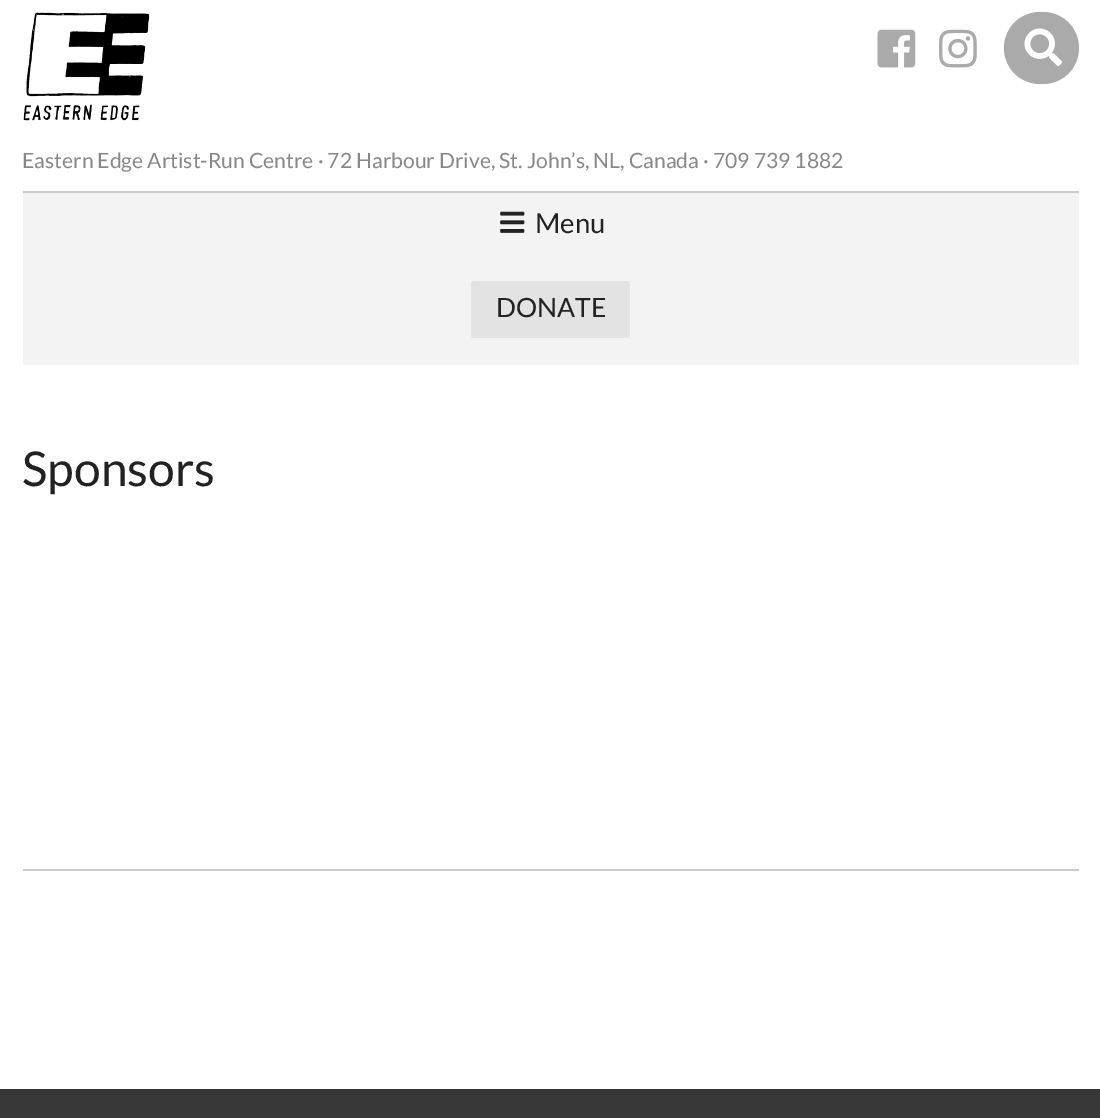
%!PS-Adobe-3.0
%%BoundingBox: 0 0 1100 1118
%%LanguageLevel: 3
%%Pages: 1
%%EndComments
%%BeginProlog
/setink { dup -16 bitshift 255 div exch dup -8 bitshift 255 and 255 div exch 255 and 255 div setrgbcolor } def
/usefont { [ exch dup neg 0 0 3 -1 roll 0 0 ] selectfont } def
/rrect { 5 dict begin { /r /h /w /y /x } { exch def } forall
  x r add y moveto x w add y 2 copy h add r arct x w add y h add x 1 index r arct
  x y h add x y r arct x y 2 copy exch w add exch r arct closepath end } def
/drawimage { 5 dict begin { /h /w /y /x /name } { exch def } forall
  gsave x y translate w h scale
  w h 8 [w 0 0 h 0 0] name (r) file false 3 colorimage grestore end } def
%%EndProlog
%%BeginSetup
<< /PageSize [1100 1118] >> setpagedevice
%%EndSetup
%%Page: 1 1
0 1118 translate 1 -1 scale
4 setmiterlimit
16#FFFFFF setink
0 0 1100 1118 rectfill
(img1.raw) 23 12 127 109 drawimage
(img2.raw) 877 29 39 39 drawimage
(img3.raw) 939 29 38 39 drawimage
16#AAAAAA setink
1004 12 75 72 36 rrect fill
(img4.raw) 1024 28 38 38 drawimage
/Lato-Regular 21.1 usefont
16#888888 setink
22 168 moveto (Eastern Edge Artist-Run Centre · 72 Harbour Drive, St. John’s, NL, Canada · 709 739 1882) show
16#F3F3F3 setink
23 193 1056 172 rectfill
16#CCCCCC setink
23 191 1056 2 rectfill
(img5.raw) 500 211 25 22 drawimage
/Lato-Regular 27.5 usefont
16#222222 setink
535 233 moveto (Menu) show
16#E3E3E3 setink
471 281 159 57 3 rrect fill
/Lato-Regular 26.5 usefont
16#222222 setink
496 317 moveto (DONATE) show
/Lato-Regular 48 usefont
22 486 moveto (Sponsors) show
16#CCCCCC setink
23 869 1056 2 rectfill
16#373737 setink
0 1089 1100 29 rectfill
showpage
%%EOF
